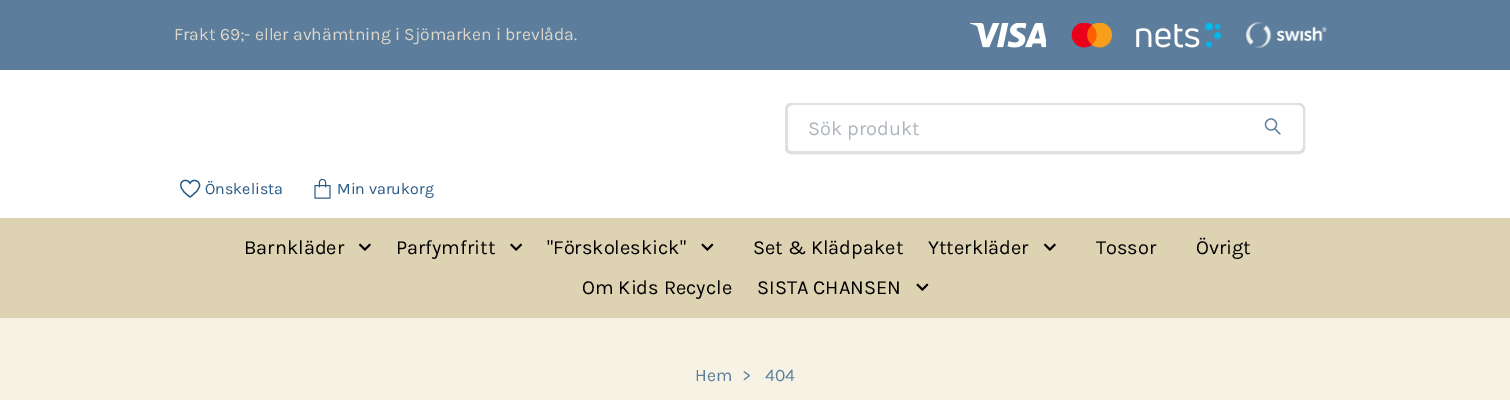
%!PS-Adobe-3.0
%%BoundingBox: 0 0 1510 400
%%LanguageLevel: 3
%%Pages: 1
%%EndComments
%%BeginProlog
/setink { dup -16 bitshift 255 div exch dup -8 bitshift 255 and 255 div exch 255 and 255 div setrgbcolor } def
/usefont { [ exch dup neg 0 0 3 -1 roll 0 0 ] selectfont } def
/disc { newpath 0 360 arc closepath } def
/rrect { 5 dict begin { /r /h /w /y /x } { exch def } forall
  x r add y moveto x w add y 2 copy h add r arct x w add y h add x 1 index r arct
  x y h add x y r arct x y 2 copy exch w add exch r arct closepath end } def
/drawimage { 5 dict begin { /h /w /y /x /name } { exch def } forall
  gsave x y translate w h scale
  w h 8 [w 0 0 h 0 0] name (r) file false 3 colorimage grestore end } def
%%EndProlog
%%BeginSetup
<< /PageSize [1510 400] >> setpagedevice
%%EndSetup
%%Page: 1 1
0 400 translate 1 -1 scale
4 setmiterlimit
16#F6F3E4 setink
0 0 1510 400 rectfill
16#5C7D9B setink
0 0 1510 70 rectfill
/Karla-Regular 17.5 usefont
16#DCD7CA setink
174 40 moveto (Frakt 69;- eller avhämtning i Sjömarken i brevlåda.) show
(img1.raw) 970 23 76 25 drawimage
(img2.raw) 1071 23 42 25 drawimage
(img3.raw) 1136 23 85 25 drawimage
(img4.raw) 1246 22 81 26 drawimage
16#FFFFFF setink
0 70 1510 148 rectfill
16#DFDFDF setink
3 setlinewidth
786.5 104.5 517 48 4.5 rrect stroke
16#FFFFFF setink
794 105 moveto 1243 105 lineto 1243 151 lineto 794 151 lineto 790.5 151 788 148.5 788 145 curveto 788 111 lineto 788 107.5 790.5 105 794 105 curveto closepath fill
/Karla-Regular 20 usefont
16#ADB5BD setink
808 135 moveto (Sök produkt) show
16#FFFFFF setink
1243 105 moveto 1297 105 lineto 1300.5 105 1303 107.5 1303 111 curveto 1303 145 lineto 1303 148.5 1300.5 151 1297 151 curveto 1243 151 lineto closepath fill
16#5C7D9B setink
1.2 setlinewidth
1 setlinecap
1 setlinejoin
1274.5 128.5 moveto 1280 134 lineto stroke
0 setlinecap
0 setlinejoin
1271 124.5 5.5 disc stroke
16#295985 setink
1 setlinecap
1 setlinejoin
194.5 180.5 moveto 192.5 180.5 190.5 181.5 190 183.5 curveto 187 175.5 170.5 183.5 190 197 curveto 196 193 199.5 189 199.5 185 curveto 199.5 182.5 197.5 180.5 194.5 180.5 curveto closepath stroke
/Karla-Regular 16 usefont
205 194 moveto (Önskelista) show
(img5.raw) 314 179 17 20 drawimage
337 194 moveto (Min varukorg) show
16#DDD2B2 setink
0 218 1510 100 rectfill
/Karla-Regular 20 usefont
16#000000 setink
244 254 moveto (Barnkläder) show
(img6.raw) 359 243 12 8 drawimage
396 254 moveto (Parfymfritt) show
(img7.raw) 510 243 12 8 drawimage
547 254 moveto ("Förskoleskick") show
(img8.raw) 701 243 13 8 drawimage
753 254 moveto (Set & Klädpaket) show
928 254 moveto (Ytterkläder) show
(img6.raw) 1044 243 12 8 drawimage
[
    [(Tossor) 1096 254]
    [(Övrigt) 1196 254]
    [(Om Kids Recycle) 582 294]
    [(SISTA CHANSEN) 757 294]
] { aload pop moveto show } forall
(img8.raw) 916 283 13 8 drawimage
/Karla-Regular 17.5 usefont
16#5C7D9B setink
[
    [(Hem) 695 381]
    [(>) 742 381]
    [(404) 765 381]
] { aload pop moveto show } forall
showpage
%%EOF
